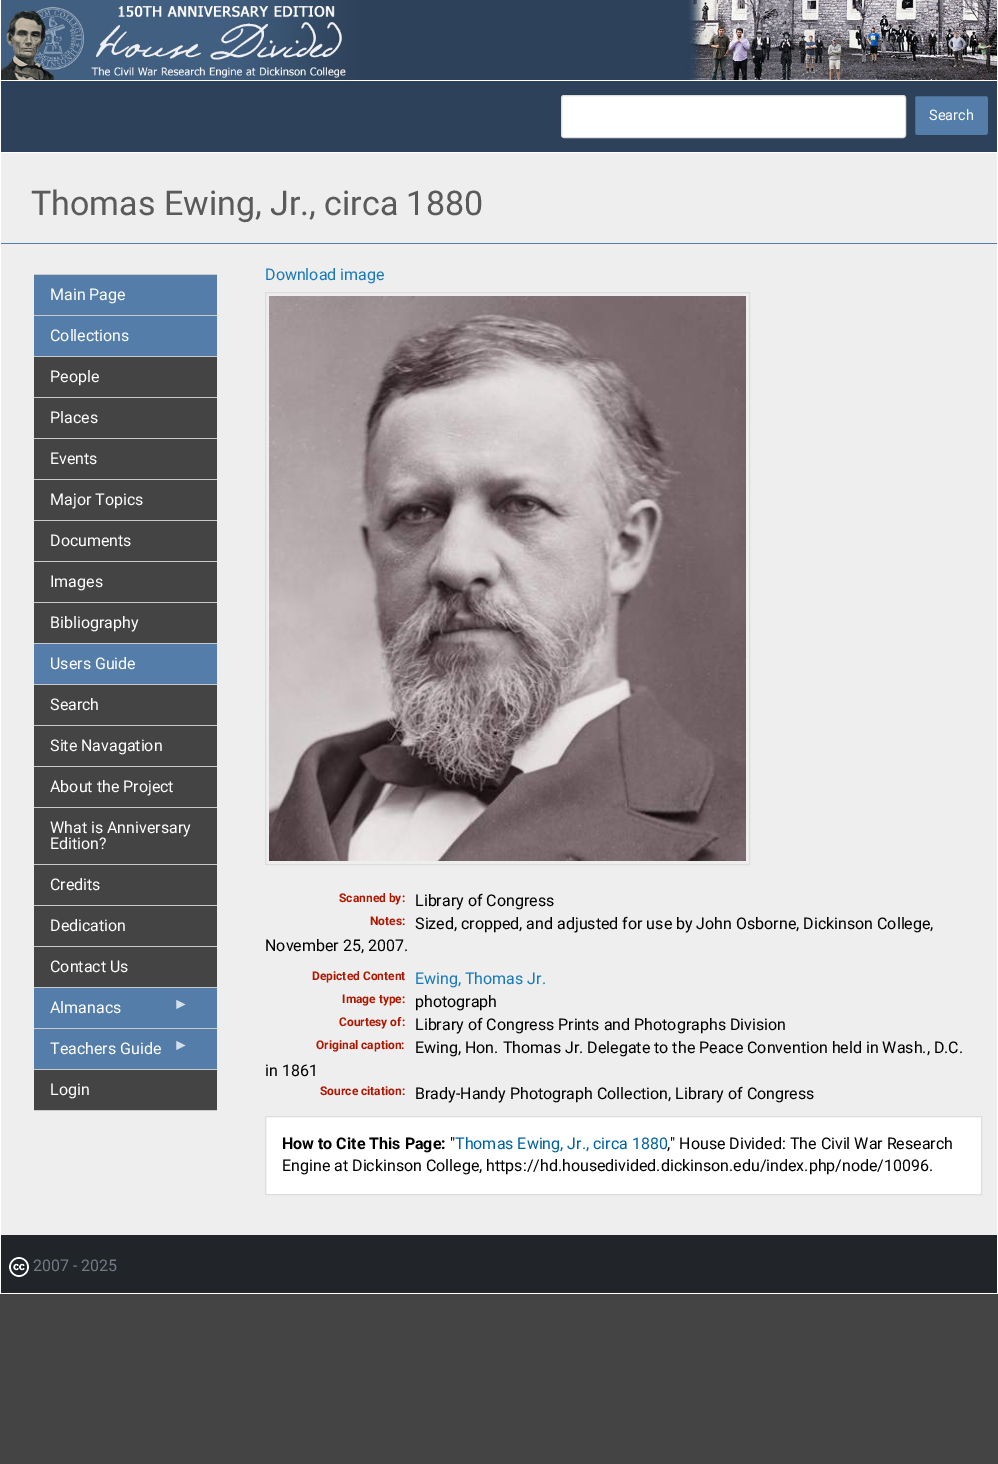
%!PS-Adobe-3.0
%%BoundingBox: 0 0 998 1464
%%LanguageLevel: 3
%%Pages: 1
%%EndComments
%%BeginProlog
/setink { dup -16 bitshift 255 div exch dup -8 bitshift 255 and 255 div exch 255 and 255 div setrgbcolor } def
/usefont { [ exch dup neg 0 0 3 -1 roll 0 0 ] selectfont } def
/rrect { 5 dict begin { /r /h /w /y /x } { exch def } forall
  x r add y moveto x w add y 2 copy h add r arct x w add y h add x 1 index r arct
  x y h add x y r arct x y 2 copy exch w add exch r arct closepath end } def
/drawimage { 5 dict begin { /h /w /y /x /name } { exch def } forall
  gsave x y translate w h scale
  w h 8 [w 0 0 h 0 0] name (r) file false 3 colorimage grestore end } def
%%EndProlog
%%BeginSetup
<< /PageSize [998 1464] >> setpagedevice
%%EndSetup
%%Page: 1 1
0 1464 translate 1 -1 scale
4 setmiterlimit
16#444444 setink
0 0 998 1464 rectfill
16#FFFFFF setink
0 0 998 1294 rectfill
(img1.raw) 1 0 996 80 drawimage
16#2D415A setink
1 81 996 71 rectfill
16#FFFFFF setink
561.5 95.5 344 42 2.5 rrect gsave fill grestore
16#DDDDDD setink
stroke
16#547EA9 setink
914.5 95.5 74 40 2.5 rrect gsave fill grestore
16#2D415A setink
stroke
/Roboto-Regular 14.5 usefont
16#FFFFFF setink
929 120 moveto (Search) show
16#EEEEEE setink
1 153 996 90 rectfill
16#547EA9 setink
1 243 996 1 rectfill
/Roboto-Regular 34 usefont
16#5B5A5A setink
31 215 moveto (Thomas Ewing, Jr., circa 1880) show
[
    [1 244 996 991 16#EEEEEE]
    [34 274 183 1 16#CACACA]
    [34 315 183 1 16#CACACA]
    [34 275 183 40 16#547EA9]
] { aload pop setink rectfill } forall
/Roboto-Regular 16 usefont
16#FFFFFF setink
50 300 moveto (Main Page) show
16#CACACA setink
34 356 183 1 rectfill
16#547EA9 setink
34 316 183 40 rectfill
16#FFFFFF setink
50 341 moveto (Collections) show
16#CACACA setink
34 397 183 1 rectfill
16#444444 setink
34 357 183 40 rectfill
16#FFFFFF setink
50 382 moveto (People) show
16#CACACA setink
34 438 183 1 rectfill
16#444444 setink
34 398 183 40 rectfill
16#FFFFFF setink
50 423 moveto (Places) show
16#CACACA setink
34 479 183 1 rectfill
16#444444 setink
34 439 183 40 rectfill
16#FFFFFF setink
50 464 moveto (Events) show
16#CACACA setink
34 520 183 1 rectfill
16#444444 setink
34 480 183 40 rectfill
16#FFFFFF setink
50 505 moveto (Major Topics) show
16#CACACA setink
34 561 183 1 rectfill
16#444444 setink
34 521 183 40 rectfill
16#FFFFFF setink
50 546 moveto (Documents) show
16#CACACA setink
34 602 183 1 rectfill
16#444444 setink
34 562 183 40 rectfill
16#FFFFFF setink
50 587 moveto (Images) show
16#CACACA setink
34 643 183 1 rectfill
16#444444 setink
34 603 183 40 rectfill
16#FFFFFF setink
50 628 moveto (Bibliography) show
16#CACACA setink
34 684 183 1 rectfill
16#547EA9 setink
34 644 183 40 rectfill
16#FFFFFF setink
50 669 moveto (Users Guide) show
16#CACACA setink
34 725 183 1 rectfill
16#444444 setink
34 685 183 40 rectfill
16#FFFFFF setink
50 710 moveto (Search) show
16#CACACA setink
34 766 183 1 rectfill
16#444444 setink
34 726 183 40 rectfill
16#FFFFFF setink
50 751 moveto (Site Navagation) show
16#CACACA setink
34 807 183 1 rectfill
16#444444 setink
34 767 183 40 rectfill
16#FFFFFF setink
50 792 moveto (About the Project) show
16#CACACA setink
34 864 183 1 rectfill
16#444444 setink
34 808 183 56 rectfill
16#FFFFFF setink
50 833 moveto (What is Anniversary) show
50 849 moveto (Edition?) show
16#CACACA setink
34 905 183 1 rectfill
16#444444 setink
34 865 183 40 rectfill
16#FFFFFF setink
50 890 moveto (Credits) show
16#CACACA setink
34 946 183 1 rectfill
16#444444 setink
34 906 183 40 rectfill
16#FFFFFF setink
50 931 moveto (Dedication) show
16#CACACA setink
34 987 183 1 rectfill
16#444444 setink
34 947 183 40 rectfill
16#FFFFFF setink
50 972 moveto (Contact Us) show
16#CACACA setink
34 1028 183 1 rectfill
16#547EA9 setink
34 988 183 40 rectfill
16#FFFFFF setink
50 1013 moveto (Almanacs) show
/LiberationSans-Regular 16 usefont
16#D4DFEA setink
173 1009 moveto (►) show
16#CACACA setink
34 1069 183 1 rectfill
16#547EA9 setink
34 1029 183 40 rectfill
/Roboto-Regular 16 usefont
16#FFFFFF setink
50 1054 moveto (Teachers Guide) show
/LiberationSans-Regular 16 usefont
16#D4DFEA setink
173 1050 moveto (►) show
16#CACACA setink
34 1110 183 1 rectfill
16#444444 setink
34 1070 183 40 rectfill
/Roboto-Regular 16 usefont
16#FFFFFF setink
50 1095 moveto (Login) show
16#1779BA setink
265 280 moveto (Download image) show
16#DDDDDD setink
265.5 292.5 484 572 rectstroke
(img2.raw) 269 296 477 565 drawimage
/Roboto-Bold 12 usefont
16#AD1600 setink
339 902 moveto (Scanned by:) show
/Roboto-Regular 16 usefont
16#000000 setink
[
    [(Library of Congress) 415 906]
    [(Sized, cropped, and adjusted for use by John Osborne, Dickinson College,) 415 929]
    [(November 25, 2007.) 265 951]
] { aload pop moveto show } forall
/Roboto-Bold 12 usefont
16#AD1600 setink
370 925 moveto (Notes:) show
312 980 moveto (Depicted Content) show
/Roboto-Regular 16 usefont
16#1779BA setink
415 984 moveto (Ewing, Thomas Jr.) show
/Roboto-Bold 12 usefont
16#AD1600 setink
342 1003 moveto (Image type:) show
/Roboto-Regular 16 usefont
16#000000 setink
415 1007 moveto (photograph) show
/Roboto-Bold 12 usefont
16#AD1600 setink
339 1026 moveto (Courtesy of:) show
/Roboto-Regular 16 usefont
16#000000 setink
415 1030 moveto (Library of Congress Prints and Photographs Division) show
/Roboto-Bold 12 usefont
16#AD1600 setink
316 1049 moveto (Original caption:) show
/Roboto-Regular 16 usefont
16#000000 setink
415 1053 moveto (Ewing, Hon. Thomas Jr. Delegate to the Peace Convention held in Wash., D.C.) show
265 1076 moveto (in 1861) show
/Roboto-Bold 12 usefont
16#AD1600 setink
320 1095 moveto (Source citation:) show
/Roboto-Regular 16 usefont
16#000000 setink
415 1099 moveto (Brady-Handy Photograph Collection, Library of Congress) show
16#FFFFFF setink
265.5 1116.5 moveto 981.5 1116.5 lineto 981.5 1194.5 lineto 265.5 1194.5 lineto closepath gsave fill grestore
16#DDDDDD setink
stroke
/Roboto-Bold 16 usefont
16#000000 setink
282 1149 moveto (How to Cite This Page:) show
/Roboto-Regular 16 usefont
450 1149 moveto (") show
16#00629F setink
455 1149 moveto (Thomas Ewing, Jr., circa 1880) show
16#000000 setink
667 1149 moveto (," House Divided: The Civil War Research) show
282 1171 moveto (Engine at Dickinson College, https://hd.housedivided.dickinson.edu/index.php/node/10096.) show
16#21252A setink
1 1235 996 58 rectfill
(img3.raw) 9 1257 20 20 drawimage
16#747A85 setink
33 1271 moveto (2007 - 2025) show
showpage
%%EOF
